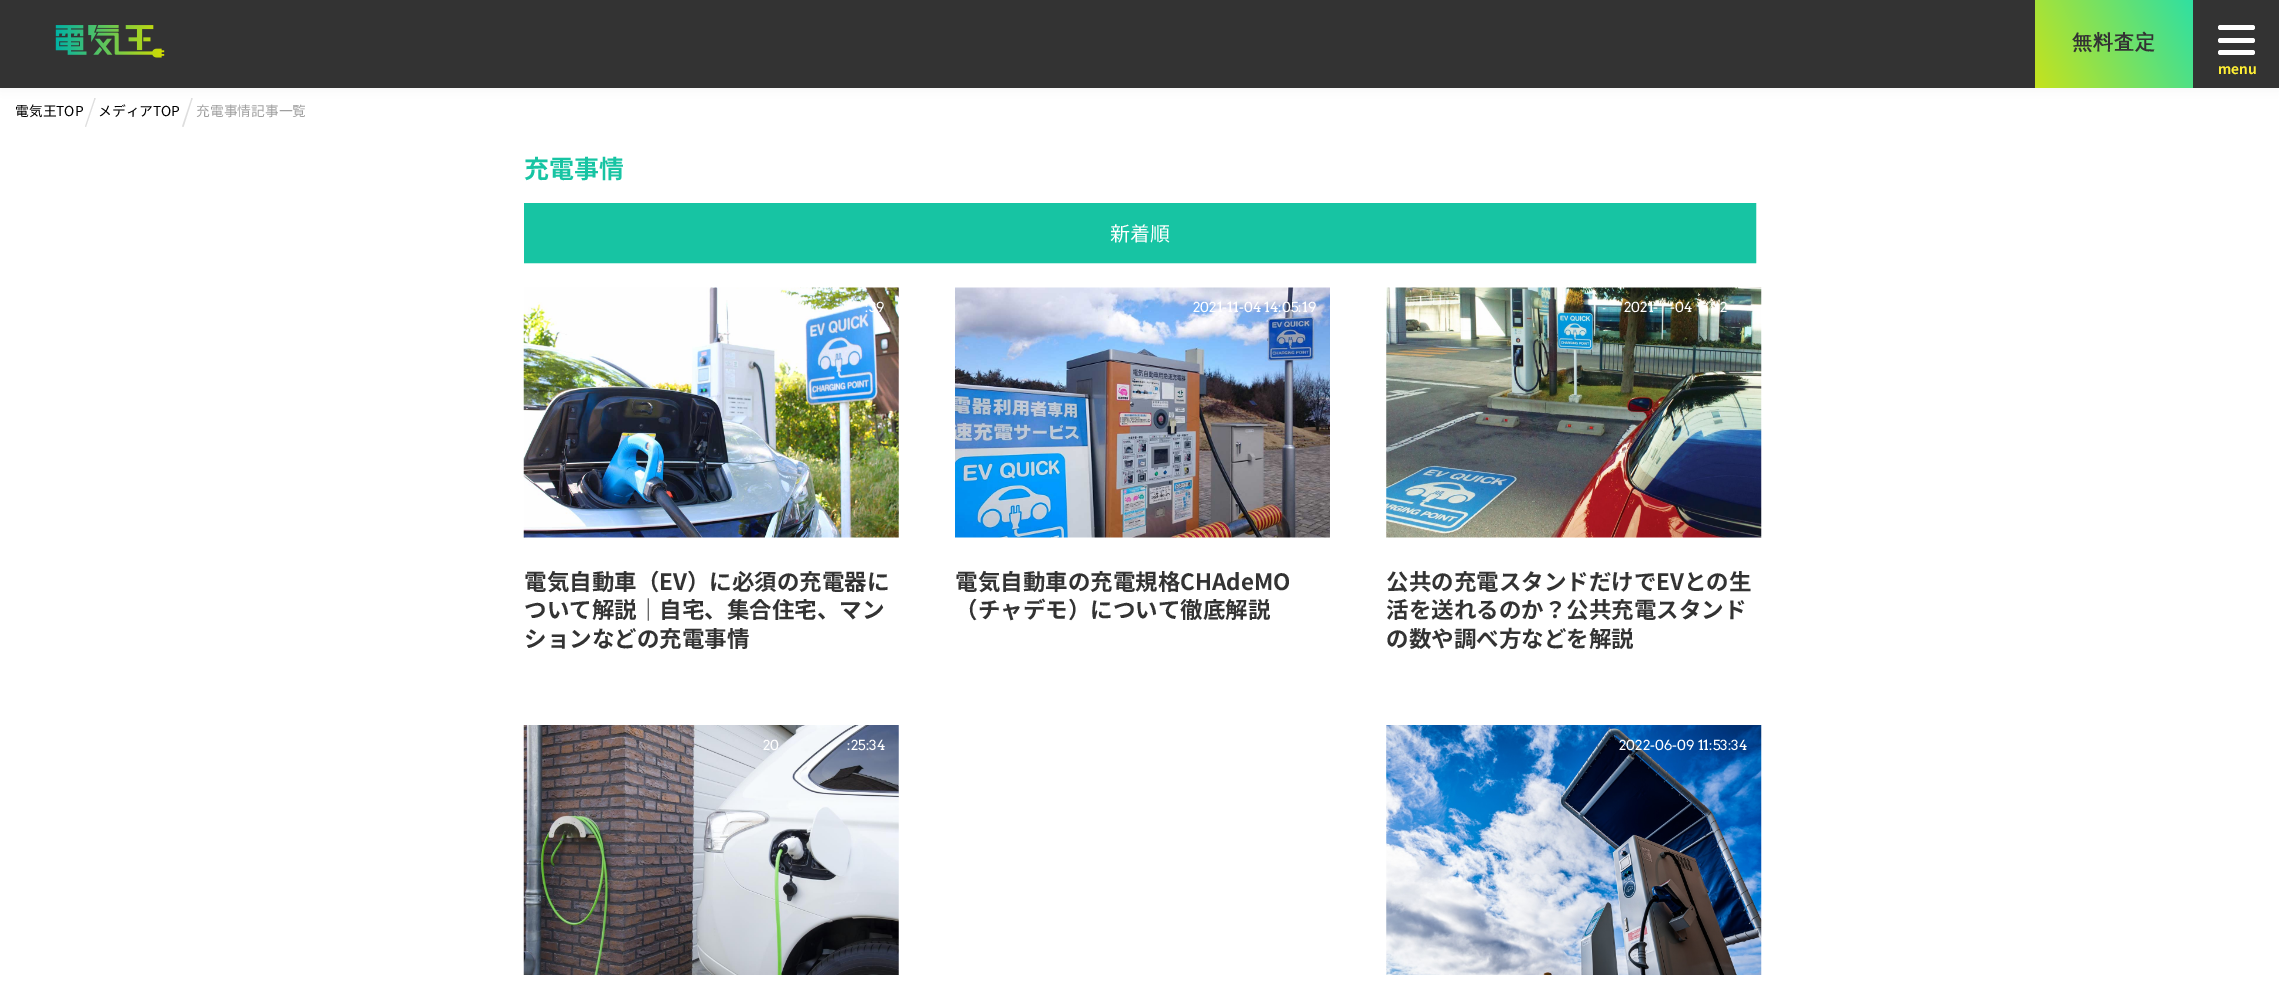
%!PS-Adobe-3.0
%%BoundingBox: 0 0 2279 1005
%%LanguageLevel: 3
%%Pages: 1
%%EndComments
%%BeginProlog
/setink { dup -16 bitshift 255 div exch dup -8 bitshift 255 and 255 div exch 255 and 255 div setrgbcolor } def
/usefont { [ exch dup neg 0 0 3 -1 roll 0 0 ] selectfont } def
/setalpha { dup .setfillconstantalpha .setstrokeconstantalpha } def
/rrect { 5 dict begin { /r /h /w /y /x } { exch def } forall
  x r add y moveto x w add y 2 copy h add r arct x w add y h add x 1 index r arct
  x y h add x y r arct x y 2 copy exch w add exch r arct closepath end } def
/softshadow { 12 dict begin { /a /b /q /h /w /y /x } { exch def } forall gsave /was 0 def
  9 -2 -9 { dup b mul 4 div /e exch def 1 sub .425 mul 2.718 exch exp 1 add a .99 .min exch div /now exch def
    1 1 now sub 1 was sub div sub setalpha /was now def
    w h .min e 2 mul add 0 gt { x e sub y e sub w e 2 mul add h e 2 mul add
      q e add b .6 mul add w h .min 2 div e add .min 0 .max rrect fill } if } for grestore end } def
/drawimage { 5 dict begin { /h /w /y /x /name } { exch def } forall
  gsave x y translate w h scale
  w h 8 [w 0 0 h 0 0] name (r) file false 3 colorimage grestore end } def
%%EndProlog
%%BeginSetup
<< /PageSize [2279 1005] /PageUsesTransparency true >> setpagedevice
%%EndSetup
%%Page: 1 1
0 .pushpdf14devicefilter
0 1005 translate 1 -1 scale
4 setmiterlimit
16#FFFFFF setink
0 0 2279 1005 rectfill
16#DEDEDE setink
94.5 98 moveto 95.5 98.5 lineto 95 99.5 lineto 94 99 lineto closepath fill
94.5 98 moveto 95.5 98.5 lineto 86 127 lineto 85 126.5 lineto closepath fill
191.5 98 moveto 192.5 98.5 lineto 192 99.5 lineto 191 99 lineto closepath fill
191.5 98 moveto 192.5 98.5 lineto 183.5 127 lineto 182 126.5 lineto closepath fill
16#000000 setink
0 4 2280 87 0 6 0.04 softshadow
16#333333 setink
0 0 2279 88 rectfill
(img1.raw) 55 25 110 33 drawimage
gsave 2035 0 moveto 2193 0 lineto 2193 88 lineto 2035 88 lineto closepath clip newpath
<< /ShadingType 2 /ColorSpace /DeviceRGB /Coords [2195 4.3 2033 83] /Extend [true true] /Function << /FunctionType 2 /Domain [0 1] /C0 [0.184 0.878 0.635] /C1 [0.773 0.89 0.114] /N 1 >> >> shfill grestore
/WenQuanYiZenHei-Bold 20 usefont
2072 49 moveto 1 0 (無料査定) ashow
16#FFFFFF setink
2218 25 37 5 2.5 rrect fill
2218 38 37 5 2.5 rrect fill
2218 50 37 5 2.5 rrect fill
/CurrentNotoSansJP-Bold 13.75 usefont
16#FFEF34 setink
2218 74 moveto (menu) show
/CurrentNotoSansJP-Regular 13.75 usefont
16#000000 setink
15 116 moveto (電気王TOP) show
98 116 moveto (メディアTOP) show
16#9F9F9F setink
196 116 moveto (充電事情記事一覧) show
/CurrentNotoSansJP-Bold 25 usefont
16#17C4A3 setink
524 178 moveto (充電事情) show
525.5 204.5 moveto 1754.5 204.5 lineto 1754.5 261.5 lineto 525.5 261.5 lineto closepath gsave fill grestore
3 setlinewidth
stroke
/CurrentNotoSansJP-Regular 20 usefont
16#FFFFFF setink
1110 241 moveto (新着順) show
(img2.raw) 523 287 376 251 drawimage
/Arvo-Regular 13.75 usefont
865 312 moveto (:39) show
/CurrentNotoSansJP-Bold 22.5 usefont
16#333333 setink
[
    [(電気自動車（EV）に必須の充電器に) 524 590]
    [(ついて解説｜自宅、集合住宅、マン) 524 618]
    [(ションなどの充電事情) 524 647]
] { aload pop moveto show } forall
(img3.raw) 955 287 375 251 drawimage
/Arvo-Regular 13.75 usefont
16#FFFFFF setink
1193 312 moveto (2021-11-04 14:05:19) show
/CurrentNotoSansJP-Bold 22.5 usefont
16#333333 setink
955 590 moveto (電気自動車の充電規格CHAdeMO) show
955 618 moveto (（チャデモ）について徹底解説) show
(img4.raw) 1386 287 376 251 drawimage
/Arvo-Regular 13.75 usefont
16#FFFFFF setink
[
    [(2021-) 1624 312]
    [(-04) 1670 312]
    [(2) 1720 312]
] { aload pop moveto show } forall
/CurrentNotoSansJP-Bold 22.5 usefont
16#333333 setink
[
    [(公共の充電スタンドだけでEVとの生) 1386 590]
    [(活を送れるのか？公共充電スタンド) 1386 618]
    [(の数や調べ方などを解説) 1386 647]
] { aload pop moveto show } forall
(img5.raw) 523 725 376 250 drawimage
/Arvo-Regular 13.75 usefont
16#FFFFFF setink
763 750 moveto (20) show
847 750 moveto (:25:34) show
(img6.raw) 1386 725 376 250 drawimage
1619 750 moveto (2022-06-09 11:53:34) show
.poppdf14devicefilter showpage
%%EOF
